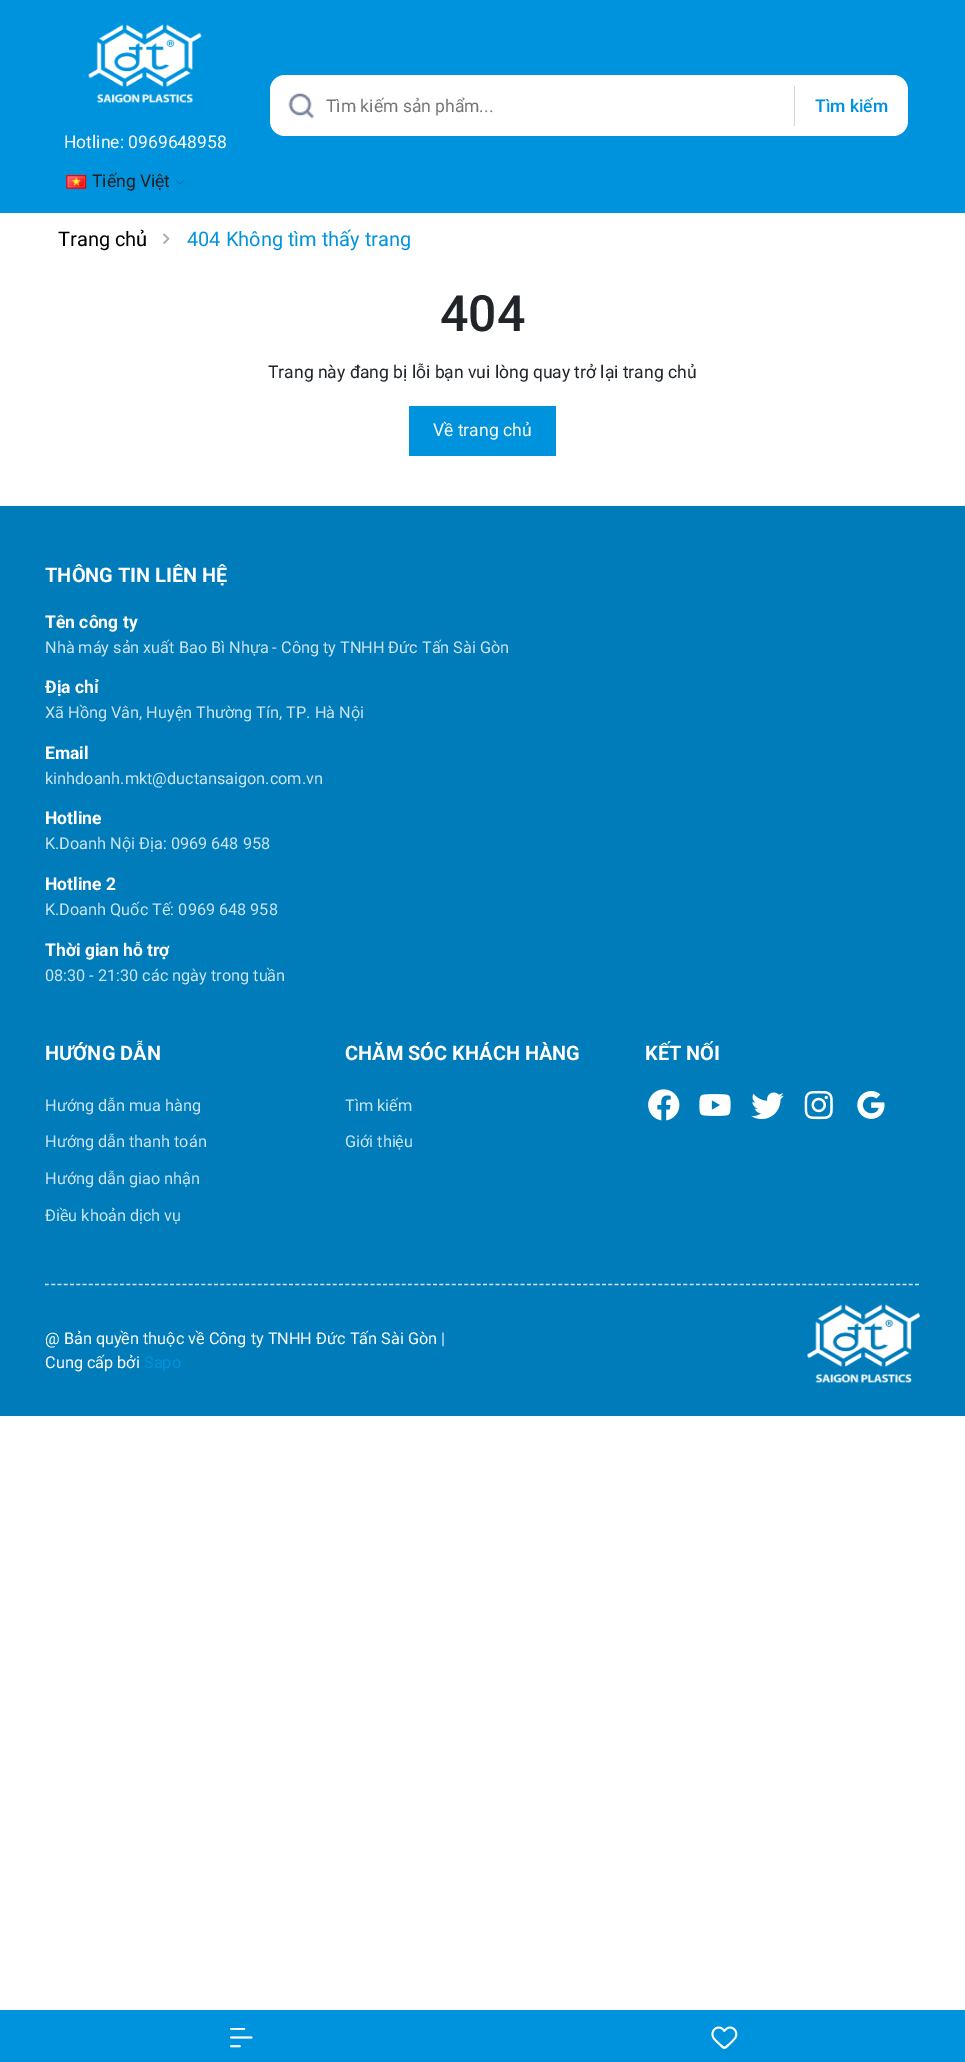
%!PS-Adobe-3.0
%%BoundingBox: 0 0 965 2062
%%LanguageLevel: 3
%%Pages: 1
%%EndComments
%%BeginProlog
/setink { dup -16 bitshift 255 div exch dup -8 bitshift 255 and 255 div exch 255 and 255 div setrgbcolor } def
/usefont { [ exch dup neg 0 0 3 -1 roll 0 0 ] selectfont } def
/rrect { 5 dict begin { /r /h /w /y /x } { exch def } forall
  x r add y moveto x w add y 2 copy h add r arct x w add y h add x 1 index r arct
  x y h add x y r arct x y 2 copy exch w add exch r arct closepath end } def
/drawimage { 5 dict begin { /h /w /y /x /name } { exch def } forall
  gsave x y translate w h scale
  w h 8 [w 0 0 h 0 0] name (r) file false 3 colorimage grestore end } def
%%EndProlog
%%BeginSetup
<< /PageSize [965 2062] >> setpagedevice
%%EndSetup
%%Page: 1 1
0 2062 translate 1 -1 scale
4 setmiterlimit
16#FFFFFF setink
0 0 965 2062 rectfill
16#0093DD setink
0 0 965 213 rectfill
16#FFFFFF setink
270 75 638 61 15 rrect fill
(img1.raw) 288 92 26 27 drawimage
/Roboto-Regular 17.5 usefont
16#757575 setink
326 112 moveto (Tìm kiếm sản phẩm...) show
16#D5D5D6 setink
794 86 1 40 rectfill
/Roboto-Medium 17.5 usefont
16#0093DD setink
815 112 moveto (Tìm kiếm) show
(img2.raw) 88 24 114 79 drawimage
/Roboto-Regular 17.5 usefont
16#FFFFFF setink
64 148 moveto (Hotline: 0969648958) show
(img3.raw) 66 175 21 14 drawimage
16#231F20 setink
92 187 moveto (Tiếng Việt) show
(img4.raw) 176 180 8 5 drawimage
16#0093DD setink
0 2010 965 52 rectfill
(img5.raw) 230 2028 23 20 drawimage
(img6.raw) 711 2026 27 23 drawimage
/Roboto-Regular 20 usefont
16#000000 setink
58 246 moveto (Trang chủ) show
(img7.raw) 163 233 7 11 drawimage
16#0093DD setink
187 246 moveto (404 Không tìm thấy trang) show
/Roboto-Medium 50 usefont
16#212529 setink
440 331 moveto (404) show
/Roboto-Regular 17.5 usefont
268 378 moveto (Trang này đang bị lỗi bạn vui lòng quay trở lại trang chủ) show
16#0093DD setink
409 406 147 50 rectfill
16#FFFFFF setink
433 436 moveto (Về trang chủ) show
16#007CBB setink
0 506 965 910 rectfill
/Roboto-Bold 20 usefont
16#FFFFFF setink
45 582 moveto (THÔNG TIN LIÊN HỆ) show
/Roboto-Bold 17.5 usefont
45 628 moveto (Tên công ty) show
/Roboto-Regular 16.25 usefont
16#CCE5F1 setink
45 653 moveto (Nhà máy sản xuất Bao Bì Nhựa - Công ty TNHH Đức Tấn Sài Gòn) show
/Roboto-Bold 17.5 usefont
16#FFFFFF setink
45 693 moveto (Địa chỉ) show
/Roboto-Regular 16.25 usefont
16#CCE5F1 setink
45 718 moveto (Xã Hồng Vân, Huyện Thường Tín, TP. Hà Nội) show
/Roboto-Bold 17.5 usefont
16#FFFFFF setink
45 759 moveto (Email) show
/Roboto-Regular 16.25 usefont
16#CCE5F1 setink
45 784 moveto (kinhdoanh.mkt@ductansaigon.com.vn) show
/Roboto-Bold 17.5 usefont
16#FFFFFF setink
45 824 moveto (Hotline) show
/Roboto-Regular 16.25 usefont
16#CCE5F1 setink
45 849 moveto (K.Doanh Nội Địa: 0969 648 958) show
/Roboto-Bold 17.5 usefont
16#FFFFFF setink
45 890 moveto (Hotline 2) show
/Roboto-Regular 16.25 usefont
16#CCE5F1 setink
45 915 moveto (K.Doanh Quốc Tế: 0969 648 958) show
/Roboto-Bold 17.5 usefont
16#FFFFFF setink
45 956 moveto (Thời gian hỗ trợ) show
/Roboto-Regular 16.25 usefont
16#CCE5F1 setink
45 981 moveto (08:30 - 21:30 các ngày trong tuần) show
/Roboto-Bold 20 usefont
16#FFFFFF setink
45 1060 moveto (HƯỚNG DẪN) show
/Roboto-Regular 16.25 usefont
16#CCE5F1 setink
[
    [(Hướng dẫn mua hàng) 45 1111]
    [(Hướng dẫn thanh toán) 45 1147]
    [(Hướng dẫn giao nhận) 45 1184]
    [(Điều khoản dịch vụ) 45 1221]
] { aload pop moveto show } forall
/Roboto-Bold 20 usefont
16#FFFFFF setink
345 1060 moveto (CHĂM SÓC KHÁCH HÀNG) show
/Roboto-Regular 16.25 usefont
16#CCE5F1 setink
345 1111 moveto (Tìm kiếm) show
345 1147 moveto (Giới thiệu) show
/Roboto-Bold 20 usefont
16#FFFFFF setink
645 1060 moveto (KẾT NỐI) show
(img8.raw) 648 1089 32 32 drawimage
(img9.raw) 699 1094 32 22 drawimage
(img10.raw) 751 1092 33 28 drawimage
(img11.raw) 804 1090 29 30 drawimage
(img12.raw) 857 1091 28 28 drawimage
16#CCE5F1 setink
1.2 setlinewidth
[3.75 2.51] 0 setdash
45 1284.5 moveto 920 1284.5 lineto stroke
/Roboto-Regular 16.25 usefont
16#FFFFFF setink
45 1344 moveto (@ Bản quyền thuộc về Công ty TNHH Đức Tấn Sài Gòn |) show
45 1368 moveto (Cung cấp bởi) show
16#0093DD setink
144 1368 moveto (Sapo) show
(img13.raw) 807 1304 113 79 drawimage
showpage
%%EOF
